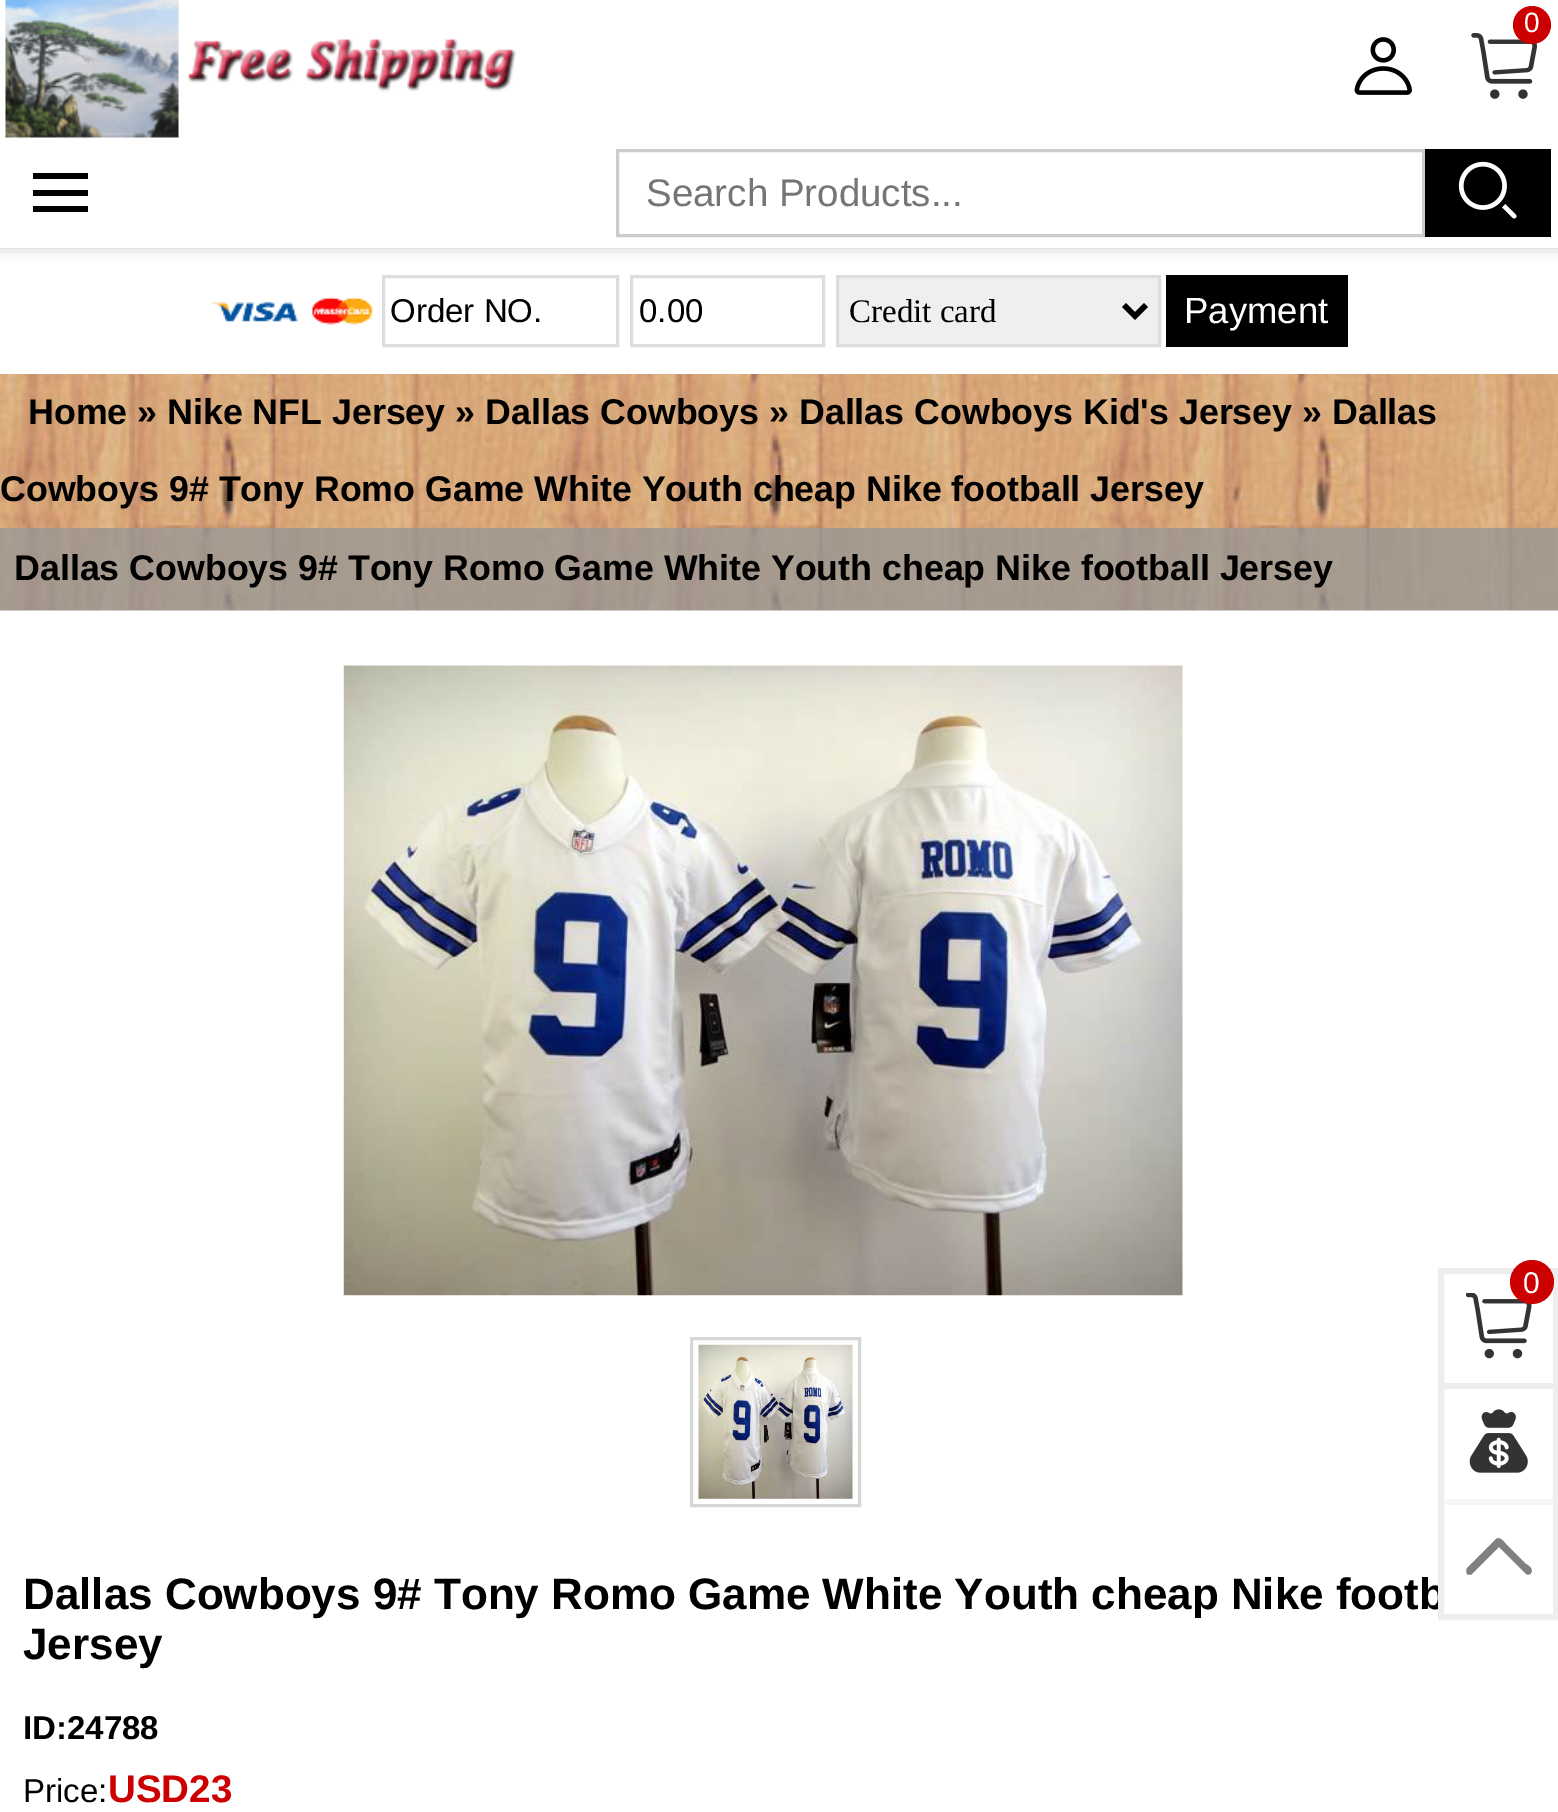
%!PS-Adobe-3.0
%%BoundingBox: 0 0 1558 1812
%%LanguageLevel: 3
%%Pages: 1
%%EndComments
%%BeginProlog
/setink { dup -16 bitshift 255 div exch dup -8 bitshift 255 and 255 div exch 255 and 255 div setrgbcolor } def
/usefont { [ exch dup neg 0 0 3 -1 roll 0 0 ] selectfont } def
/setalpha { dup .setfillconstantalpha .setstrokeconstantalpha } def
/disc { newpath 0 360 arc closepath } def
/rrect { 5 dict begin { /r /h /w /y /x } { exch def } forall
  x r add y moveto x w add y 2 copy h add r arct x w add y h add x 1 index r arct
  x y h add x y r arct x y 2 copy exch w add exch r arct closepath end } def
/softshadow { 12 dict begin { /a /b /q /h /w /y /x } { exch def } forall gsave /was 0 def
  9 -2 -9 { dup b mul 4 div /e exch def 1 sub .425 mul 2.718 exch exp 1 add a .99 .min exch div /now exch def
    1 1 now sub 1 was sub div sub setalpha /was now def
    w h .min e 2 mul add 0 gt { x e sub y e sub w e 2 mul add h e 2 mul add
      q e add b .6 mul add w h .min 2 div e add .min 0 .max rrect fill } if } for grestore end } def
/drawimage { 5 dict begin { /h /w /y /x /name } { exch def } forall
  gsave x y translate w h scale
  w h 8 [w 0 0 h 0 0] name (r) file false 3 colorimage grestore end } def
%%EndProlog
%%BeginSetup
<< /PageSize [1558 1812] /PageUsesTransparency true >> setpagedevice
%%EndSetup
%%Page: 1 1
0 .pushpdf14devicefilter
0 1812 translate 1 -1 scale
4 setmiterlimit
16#FFFFFF setink
0 0 1558 1812 rectfill
16#000000 setink
0 0 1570 248 0 7 0.2 softshadow
16#FFFFFF setink
0 0 1558 248 rectfill
(img1.raw) 5 0 175 138 drawimage
(img2.raw) 178 0 338 138 drawimage
(img3.raw) 1471 33 66 66 drawimage
16#CC0000 setink
1532 25 19 disc fill
/LiberationSans-Regular 28 usefont
16#FFFFFF setink
1524 32 moveto (0) show
(img4.raw) 1354 37 58 58 drawimage
[
    [33 190 55 6 16#000000]
    [33 173 55 6 16#000000]
    [33 206 55 6 16#000000]
] { aload pop setink rectfill } forall
16#CCCCCC setink
3 setlinewidth
617.5 150.5 806 85 rectstroke
/LiberationSans-Regular 38.5 usefont
16#757575 setink
646 206 moveto (Search Products...) show
16#000000 setink
1425 149 126 88 rectfill
(img5.raw) 1458 161 59 58 drawimage
(img6.raw) 211 297 162 28 drawimage
16#DDDDDD setink
383.5 276.5 234 69 rectstroke
/LiberationSans-Regular 33 usefont
16#000000 setink
390 322 moveto (Order NO.) show
16#DDDDDD setink
631.5 276.5 192 69 rectstroke
16#000000 setink
639 322 moveto (0.00) show
16#EFEFEF setink
837.5 276.5 moveto 1159.5 276.5 lineto 1159.5 345.5 lineto 837.5 345.5 lineto closepath gsave fill grestore
16#DDDDDD setink
stroke
16#000000 setink
5.5 setlinewidth
1124 305 moveto 1135 316 lineto 1146 305 lineto stroke
/LiberationSerif-Regular 33 usefont
849 322 moveto (Credit card) show
1166 275 182 72 rectfill
/LiberationSans-Regular 36.5 usefont
16#FFFFFF setink
1184 323 moveto (Payment) show
(img7.raw) 0 374 1558 154 drawimage
/LiberationSans-Bold 35.75 usefont
16#000000 setink
28 424 moveto (Home » Nike NFL Jersey » Dallas Cowboys » Dallas Cowboys Kid's Jersey » Dallas) show
0 501 moveto (Cowboys 9# Tony Romo Game White Youth cheap Nike football Jersey) show
(img8.raw) 0 528 1558 83 drawimage
14 580 moveto (Dallas Cowboys 9# Tony Romo Game White Youth cheap Nike football Jersey) show
(img9.raw) 343 665 840 631 drawimage
16#D7D7D5 setink
3 setlinewidth
691.5 1338.5 168 167 rectstroke
(img10.raw) 698 1344 155 155 drawimage
/LiberationSans-Bold 44 usefont
16#000000 setink
23 1609 moveto (Dallas Cowboys 9# Tony Romo Game White Youth cheap Nike footb) show
23 1659 moveto (Jersey) show
/LiberationSans-Bold 33 usefont
23 1739 moveto (ID:24788) show
/LiberationSans-Regular 33 usefont
23 1802 moveto (Price:) show
/LiberationSans-Bold 38.5 usefont
16#CC0000 setink
108 1802 moveto (USD23) show
16#FFFFFF setink
1444 1592 1 10 rectfill
16#EEEEEE setink
6 setlinewidth
1441 1271 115 346 rectstroke
1444 1383 110 6 rectfill
(img11.raw) 1466 1293 66 66 drawimage
16#CC0000 setink
1532 1282 22 disc fill
/LiberationSans-Regular 30 usefont
16#FFFFFF setink
1523 1293 moveto (0) show
(img12.raw) 1469 1409 59 64 drawimage
0.5 setalpha
16#EEEEEE setink
1444 1499 110 6 rectfill
1 setalpha
16#808080 setink
1496 1539 moveto 1467 1568 lineto 1466 1570 1466 1572 1467 1574 curveto 1468 1575 1471 1575 1472 1574 curveto 1499 1547 lineto 1526 1574 lineto 1528 1575 1530 1575 1531 1573 curveto 1534 1569 1528 1565 1526 1564 curveto 1506 1544 lineto 1504 1542 1500 1536 1496 1539 curveto closepath fill
.poppdf14devicefilter showpage
%%EOF
